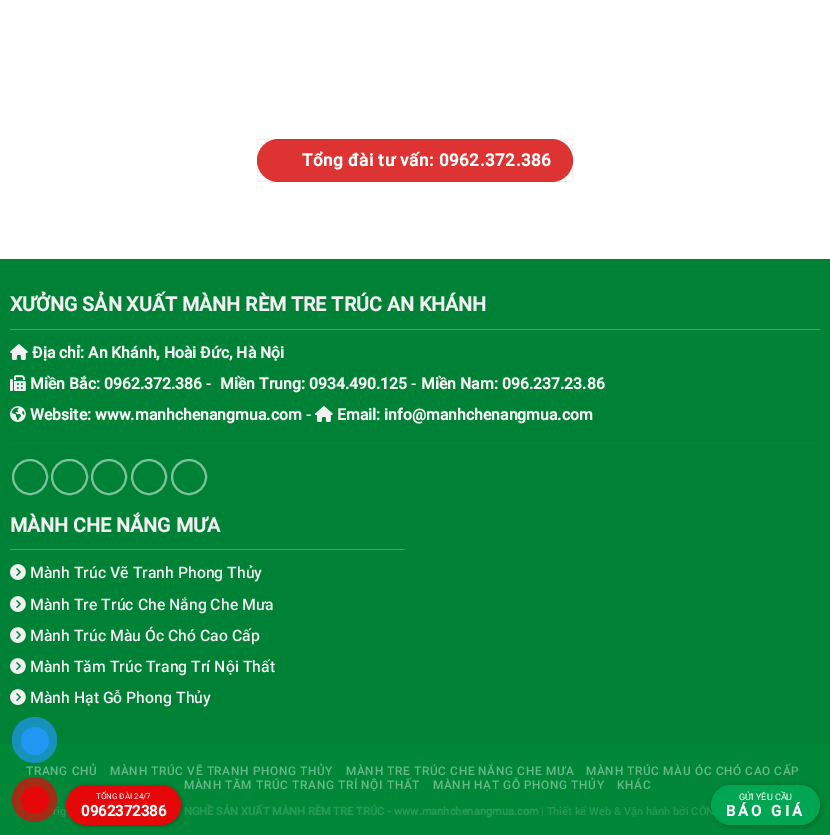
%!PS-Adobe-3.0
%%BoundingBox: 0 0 830 835
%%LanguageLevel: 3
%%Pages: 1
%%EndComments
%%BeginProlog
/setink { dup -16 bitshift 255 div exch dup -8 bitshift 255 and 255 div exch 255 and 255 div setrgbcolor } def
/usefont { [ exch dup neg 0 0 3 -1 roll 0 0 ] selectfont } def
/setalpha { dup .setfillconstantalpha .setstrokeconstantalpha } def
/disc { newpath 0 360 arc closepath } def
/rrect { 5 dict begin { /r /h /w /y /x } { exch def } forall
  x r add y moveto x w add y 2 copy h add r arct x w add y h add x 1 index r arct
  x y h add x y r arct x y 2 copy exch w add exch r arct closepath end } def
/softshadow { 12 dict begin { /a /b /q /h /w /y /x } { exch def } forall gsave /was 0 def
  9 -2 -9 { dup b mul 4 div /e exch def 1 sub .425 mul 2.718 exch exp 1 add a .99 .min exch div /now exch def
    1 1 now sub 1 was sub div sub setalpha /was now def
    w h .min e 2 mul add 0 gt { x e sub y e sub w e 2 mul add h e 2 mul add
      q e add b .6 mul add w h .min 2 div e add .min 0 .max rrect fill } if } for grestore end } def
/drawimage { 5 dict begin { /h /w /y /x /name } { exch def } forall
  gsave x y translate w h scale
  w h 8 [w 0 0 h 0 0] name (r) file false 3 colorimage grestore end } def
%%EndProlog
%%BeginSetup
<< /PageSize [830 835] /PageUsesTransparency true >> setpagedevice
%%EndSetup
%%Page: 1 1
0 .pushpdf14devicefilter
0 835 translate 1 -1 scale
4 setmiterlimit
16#FFFFFF setink
0 0 830 835 rectfill
16#DD3333 setink
257 139 316 43 21.5 rrect fill
0.05 setalpha
16#000000 setink
257.5 139.5 315 42 rectstroke
/Roboto-Bold 17.1 usefont
1 setalpha
16#FFFFFF setink
302 166 moveto 0.5 0 (Tổng đài tư vấn: 0962.372.386) ashow
16#008236 setink
0 259 830 485 rectfill
16#40A168 setink
10 329 810 1 rectfill
/Roboto-Bold 19.75 usefont
16#F1F1F1 setink
10 311 moveto (XƯỞNG SẢN XUẤT MÀNH RÈM TRE TRÚC AN KHÁNH) show
(img1.raw) 10 344 18 16 drawimage
/Roboto-Bold 15.8 usefont
32 358 moveto (Địa chỉ: An Khánh, Hoài Đức, Hà Nội) show
(img2.raw) 10 375 16 16 drawimage
30 389 moveto (Miền Bắc: 0962.372.386) show
/Roboto-Medium 15.8 usefont
206 389 moveto (-) show
/Roboto-Bold 15.8 usefont
220 389 moveto (Miền Trung: 0934.490.125) show
/Roboto-Medium 15.8 usefont
411 389 moveto (-) show
/Roboto-Bold 15.8 usefont
421 389 moveto (Miền Nam: 096.237.23.86) show
(img3.raw) 10 406 16 16 drawimage
30 420 moveto (Website: www.manhchenangmua.com) show
/Roboto-Medium 15.8 usefont
306 420 moveto (-) show
(img1.raw) 315 406 18 16 drawimage
/Roboto-Bold 15.8 usefont
337 420 moveto (Email: info@manhchenangmua.com) show
16#0D823D setink
10 443 810 1 rectfill
16#80C19B setink
2 setlinewidth
30 477 17 disc stroke
52 460 35 34 17 rrect stroke
109 477 17 disc stroke
149 477 17 disc stroke
189 477 17 disc stroke
16#40A168 setink
10 549 395 1 rectfill
/Roboto-Bold 19.75 usefont
16#F1F1F1 setink
10 532 moveto (MÀNH CHE NẮNG MƯA) show
(img4.raw) 10 564 16 16 drawimage
/Roboto-Medium 15.8 usefont
30 578 moveto (Mành Trúc Vẽ Tranh Phong Thủy) show
(img4.raw) 10 596 16 16 drawimage
30 610 moveto (Mành Tre Trúc Che Nắng Che Mưa) show
(img4.raw) 10 627 16 16 drawimage
30 641 moveto (Mành Trúc Màu Óc Chó Cao Cấp) show
(img4.raw) 10 658 16 16 drawimage
30 672 moveto (Mành Tăm Trúc Trang Trí Nội Thất) show
(img4.raw) 10 689 16 16 drawimage
30 703 moveto (Mành Hạt Gỗ Phong Thủy) show
16#008838 setink
0 744 830 91 rectfill
/Roboto-Medium 11.9 usefont
16#66B888 setink
26 775 moveto 0.6 0 (TRANG CHỦ) ashow
110 775 moveto 0.6 0 (MÀNH TRÚC VẼ TRANH PHONG THỦY) ashow
346 775 moveto 0.6 0 (MÀNH TRE TRÚC CHE NẮNG CHE MƯA) ashow
586 775 moveto 0.6 0 (MÀNH TRÚC MÀU ÓC CHÓ CAO CẤP) ashow
184 789 moveto 0.6 0 (MÀNH TĂM TRÚC TRANG TRÍ NỘI THẤT) ashow
433 789 moveto 0.6 0 (MÀNH HẠT GỖ PHONG THỦY) ashow
617 789 moveto 0.6 0 (KHÁC) ashow
/Roboto-Medium 11.1 usefont
16#279A56 setink
53 815 moveto (rig) show
/Roboto-Bold 11.1 usefont
184 815 moveto (NGHỀ SẢN XUẤT MÀNH RÈM TRE TRÚC - www.manhchenangmua.com) show
/Roboto-Medium 11.1 usefont
541 815 moveto (| Thiết kế Web & Vận hành bởi CÔN) show
0.7 setalpha
16#2196F3 setink
12 717 45 46 22.5 rrect fill
1 setalpha
35 741 14 disc fill
0.7 setalpha
16#E60808 setink
34.5 799.5 22.5 disc fill
1 setalpha
35 800 14 disc fill
16#000000 setink
67 786 115 40 20 2.5 0.3 softshadow
16#E60808 setink
66 785 115 40 20 rrect fill
/Roboto-Regular 8 usefont
16#FFFFFF setink
96 799 moveto (TỔNG ĐÀI 24/7) show
/Roboto-Bold 15 usefont
81 816 moveto (0962372386) show
16#000000 setink
712 786 109 40 20 2.5 0.3 softshadow
16#00A652 setink
711 785 109 40 20 rrect fill
/Roboto-Regular 9 usefont
16#FFFFFF setink
739 800 moveto (GỬI YÊU CẦU) show
/Roboto-Bold 15 usefont
726 816 moveto 3 0 (BÁO GIÁ) ashow
.poppdf14devicefilter showpage
%%EOF
